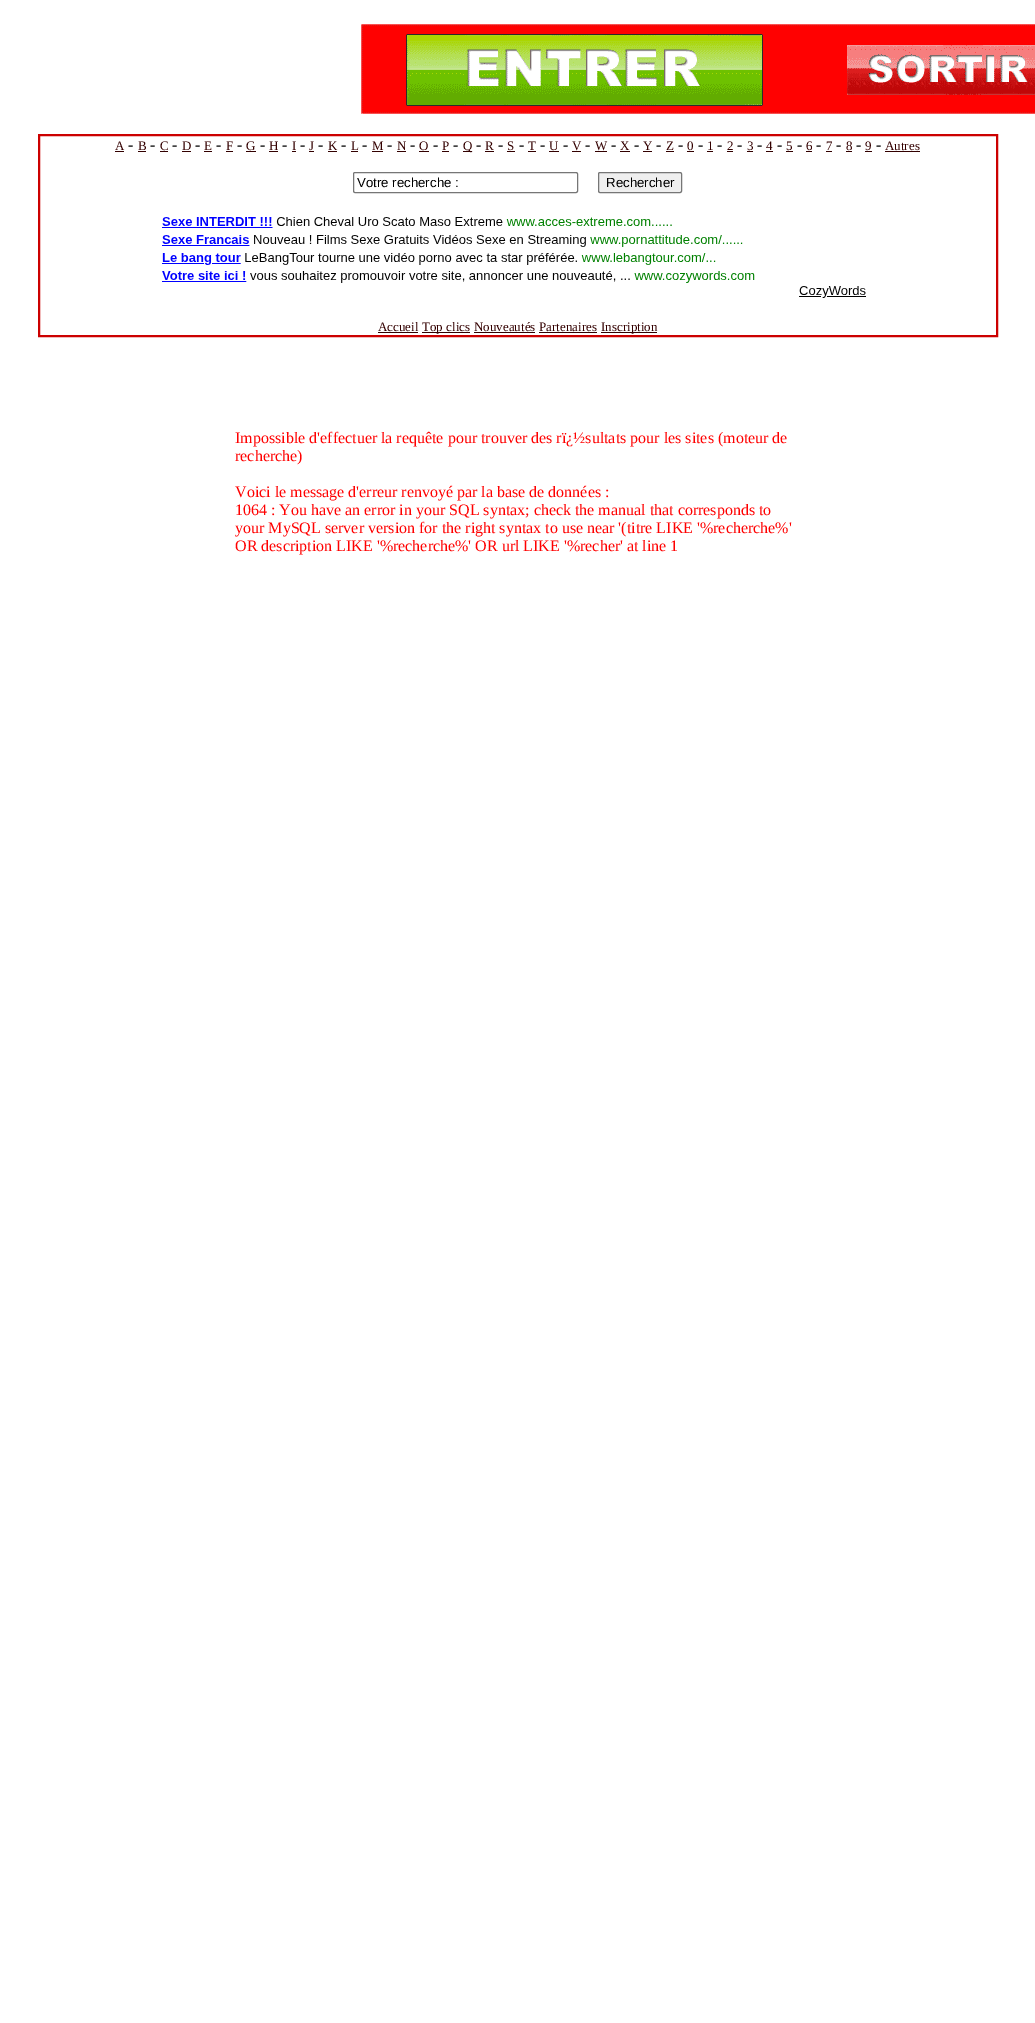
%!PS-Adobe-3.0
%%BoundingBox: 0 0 1035 2023
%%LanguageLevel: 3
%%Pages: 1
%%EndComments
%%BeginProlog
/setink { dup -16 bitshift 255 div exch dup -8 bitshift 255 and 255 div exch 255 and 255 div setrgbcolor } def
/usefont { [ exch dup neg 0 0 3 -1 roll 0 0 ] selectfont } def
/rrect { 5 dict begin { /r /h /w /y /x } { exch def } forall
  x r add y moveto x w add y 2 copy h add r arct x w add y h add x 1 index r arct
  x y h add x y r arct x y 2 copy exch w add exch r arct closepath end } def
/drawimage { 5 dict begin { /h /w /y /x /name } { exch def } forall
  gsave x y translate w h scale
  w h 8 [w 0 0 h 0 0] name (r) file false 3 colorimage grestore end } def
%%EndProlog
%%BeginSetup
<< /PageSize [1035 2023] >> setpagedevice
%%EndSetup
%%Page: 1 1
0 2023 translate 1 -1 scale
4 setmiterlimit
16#FFFFFF setink
0 0 1035 2023 rectfill
(img1.raw) 361 24 674 90 drawimage
16#CC0000 setink
38.5 134.5 959 202 rectstroke
39.5 135.5 957 200 rectstroke
/LiberationSerif-Regular 13 usefont
16#330000 setink
115 150 moveto (A) show
115 151 9 1 rectfill
/LiberationSerif-Regular 16 usefont
16#000000 setink
128 150 moveto (-) show
/LiberationSerif-Regular 13 usefont
16#330000 setink
138 150 moveto (B) show
138 151 8 1 rectfill
/LiberationSerif-Regular 16 usefont
16#000000 setink
150 150 moveto (-) show
/LiberationSerif-Regular 13 usefont
16#330000 setink
160 150 moveto (C) show
160 151 8 1 rectfill
/LiberationSerif-Regular 16 usefont
16#000000 setink
172 150 moveto (-) show
/LiberationSerif-Regular 13 usefont
16#330000 setink
182 150 moveto (D) show
182 151 9 1 rectfill
/LiberationSerif-Regular 16 usefont
16#000000 setink
195 150 moveto (-) show
/LiberationSerif-Regular 13 usefont
16#330000 setink
204 150 moveto (E) show
204 151 8 1 rectfill
/LiberationSerif-Regular 16 usefont
16#000000 setink
216 150 moveto (-) show
/LiberationSerif-Regular 13 usefont
16#330000 setink
226 150 moveto (F) show
226 151 7 1 rectfill
/LiberationSerif-Regular 16 usefont
16#000000 setink
237 150 moveto (-) show
/LiberationSerif-Regular 13 usefont
16#330000 setink
246 150 moveto (G) show
246 151 10 1 rectfill
/LiberationSerif-Regular 16 usefont
16#000000 setink
260 150 moveto (-) show
/LiberationSerif-Regular 13 usefont
16#330000 setink
269 150 moveto (H) show
269 151 9 1 rectfill
/LiberationSerif-Regular 16 usefont
16#000000 setink
282 150 moveto (-) show
/LiberationSerif-Regular 13 usefont
16#330000 setink
292 150 moveto (I) show
292 151 4 1 rectfill
/LiberationSerif-Regular 16 usefont
16#000000 setink
300 150 moveto (-) show
/LiberationSerif-Regular 13 usefont
16#330000 setink
309 150 moveto (J) show
309 151 5 1 rectfill
/LiberationSerif-Regular 16 usefont
16#000000 setink
318 150 moveto (-) show
/LiberationSerif-Regular 13 usefont
16#330000 setink
328 150 moveto (K) show
328 151 9 1 rectfill
/LiberationSerif-Regular 16 usefont
16#000000 setink
341 150 moveto (-) show
/LiberationSerif-Regular 13 usefont
16#330000 setink
351 150 moveto (L) show
351 151 7 1 rectfill
/LiberationSerif-Regular 16 usefont
16#000000 setink
362 150 moveto (-) show
/LiberationSerif-Regular 13 usefont
16#330000 setink
372 150 moveto (M) show
372 151 11 1 rectfill
/LiberationSerif-Regular 16 usefont
16#000000 setink
387 150 moveto (-) show
/LiberationSerif-Regular 13 usefont
16#330000 setink
397 150 moveto (N) show
397 151 9 1 rectfill
/LiberationSerif-Regular 16 usefont
16#000000 setink
410 150 moveto (-) show
/LiberationSerif-Regular 13 usefont
16#330000 setink
419 150 moveto (O) show
419 151 10 1 rectfill
/LiberationSerif-Regular 16 usefont
16#000000 setink
433 150 moveto (-) show
/LiberationSerif-Regular 13 usefont
16#330000 setink
442 150 moveto (P) show
442 151 7 1 rectfill
/LiberationSerif-Regular 16 usefont
16#000000 setink
453 150 moveto (-) show
16#330000 setink
463 151 9 1 rectfill
/LiberationSerif-Regular 13 usefont
463 150 moveto (Q) show
/LiberationSerif-Regular 16 usefont
16#000000 setink
476 150 moveto (-) show
/LiberationSerif-Regular 13 usefont
16#330000 setink
485 150 moveto (R) show
485 151 9 1 rectfill
/LiberationSerif-Regular 16 usefont
16#000000 setink
498 150 moveto (-) show
/LiberationSerif-Regular 13 usefont
16#330000 setink
507 150 moveto (S) show
507 151 8 1 rectfill
/LiberationSerif-Regular 16 usefont
16#000000 setink
519 150 moveto (-) show
/LiberationSerif-Regular 13 usefont
16#330000 setink
528 150 moveto (T) show
528 151 8 1 rectfill
/LiberationSerif-Regular 16 usefont
16#000000 setink
540 150 moveto (-) show
/LiberationSerif-Regular 13 usefont
16#330000 setink
549 150 moveto (U) show
549 151 10 1 rectfill
/LiberationSerif-Regular 16 usefont
16#000000 setink
563 150 moveto (-) show
/LiberationSerif-Regular 13 usefont
16#330000 setink
572 150 moveto (V) show
572 151 9 1 rectfill
/LiberationSerif-Regular 16 usefont
16#000000 setink
585 150 moveto (-) show
/LiberationSerif-Regular 13 usefont
16#330000 setink
595 150 moveto (W) show
595 151 12 1 rectfill
/LiberationSerif-Regular 16 usefont
16#000000 setink
611 150 moveto (-) show
/LiberationSerif-Regular 13 usefont
16#330000 setink
620 150 moveto (X) show
620 151 10 1 rectfill
/LiberationSerif-Regular 16 usefont
16#000000 setink
634 150 moveto (-) show
/LiberationSerif-Regular 13 usefont
16#330000 setink
643 150 moveto (Y) show
643 151 9 1 rectfill
/LiberationSerif-Regular 16 usefont
16#000000 setink
656 150 moveto (-) show
/LiberationSerif-Regular 13 usefont
16#330000 setink
666 150 moveto (Z) show
666 151 8 1 rectfill
/LiberationSerif-Regular 16 usefont
16#000000 setink
678 150 moveto (-) show
/LiberationSerif-Regular 13 usefont
16#330000 setink
687 150 moveto (0) show
687 151 7 1 rectfill
/LiberationSerif-Regular 16 usefont
16#000000 setink
698 150 moveto (-) show
/LiberationSerif-Regular 13 usefont
16#330000 setink
707 150 moveto (1) show
707 151 6 1 rectfill
/LiberationSerif-Regular 16 usefont
16#000000 setink
717 150 moveto (-) show
/LiberationSerif-Regular 13 usefont
16#330000 setink
727 150 moveto (2) show
727 151 6 1 rectfill
/LiberationSerif-Regular 16 usefont
16#000000 setink
737 150 moveto (-) show
/LiberationSerif-Regular 13 usefont
16#330000 setink
747 150 moveto (3) show
747 151 6 1 rectfill
/LiberationSerif-Regular 16 usefont
16#000000 setink
757 150 moveto (-) show
/LiberationSerif-Regular 13 usefont
16#330000 setink
766 150 moveto (4) show
766 151 7 1 rectfill
/LiberationSerif-Regular 16 usefont
16#000000 setink
777 150 moveto (-) show
/LiberationSerif-Regular 13 usefont
16#330000 setink
786 150 moveto (5) show
786 151 7 1 rectfill
/LiberationSerif-Regular 16 usefont
16#000000 setink
797 150 moveto (-) show
/LiberationSerif-Regular 13 usefont
16#330000 setink
806 150 moveto (6) show
806 151 6 1 rectfill
/LiberationSerif-Regular 16 usefont
16#000000 setink
816 150 moveto (-) show
/LiberationSerif-Regular 13 usefont
16#330000 setink
826 150 moveto (7) show
826 151 6 1 rectfill
/LiberationSerif-Regular 16 usefont
16#000000 setink
836 150 moveto (-) show
/LiberationSerif-Regular 13 usefont
16#330000 setink
846 150 moveto (8) show
846 151 6 1 rectfill
/LiberationSerif-Regular 16 usefont
16#000000 setink
856 150 moveto (-) show
/LiberationSerif-Regular 13 usefont
16#330000 setink
865 150 moveto (9) show
865 151 7 1 rectfill
/LiberationSerif-Regular 16 usefont
16#000000 setink
876 150 moveto (-) show
/LiberationSerif-Regular 13 usefont
16#330000 setink
885 150 moveto (Autres) show
885 151 35 1 rectfill
16#767676 setink
353.5 172.5 224 20 1.5 rrect stroke
/LiberationSans-Regular 13.25 usefont
16#000000 setink
357 187 moveto (Votre recherche :) show
16#EFEFEF setink
598.5 172.5 83 20 1.5 rrect gsave fill grestore
16#767676 setink
stroke
16#000000 setink
606 187 moveto (Rechercher) show
(img2.raw) 162 217 704 81 drawimage
/LiberationSerif-Regular 13 usefont
16#330000 setink
378 331 moveto (Accueil) show
378 332 40 1 rectfill
422 332 48 1 rectfill
422 331 moveto (Top clics) show
474 331 moveto (Nouveautés) show
474 332 61 1 rectfill
539 331 moveto (Partenaires) show
539 332 58 1 rectfill
601 332 56 1 rectfill
601 331 moveto (Inscription) show
/LiberationSerif-Regular 16 usefont
16#FF0000 setink
[
    [(Impossible d'effectuer la requête pour trouver des rï¿½sultats pour les sites \(moteur de) 235 443]
    [(recherche\)) 235 461]
    [(Voici le message d'erreur renvoyé par la base de données :) 235 497]
    [(1064 : You have an error in your SQL syntax; check the manual that corresponds to) 235 515]
    [(your MySQL server version for the right syntax to use near '\(titre LIKE '%recherche%') 235 533]
    [(OR description LIKE '%recherche%' OR url LIKE '%recher' at line 1) 235 551]
] { aload pop moveto show } forall
showpage
%%EOF
